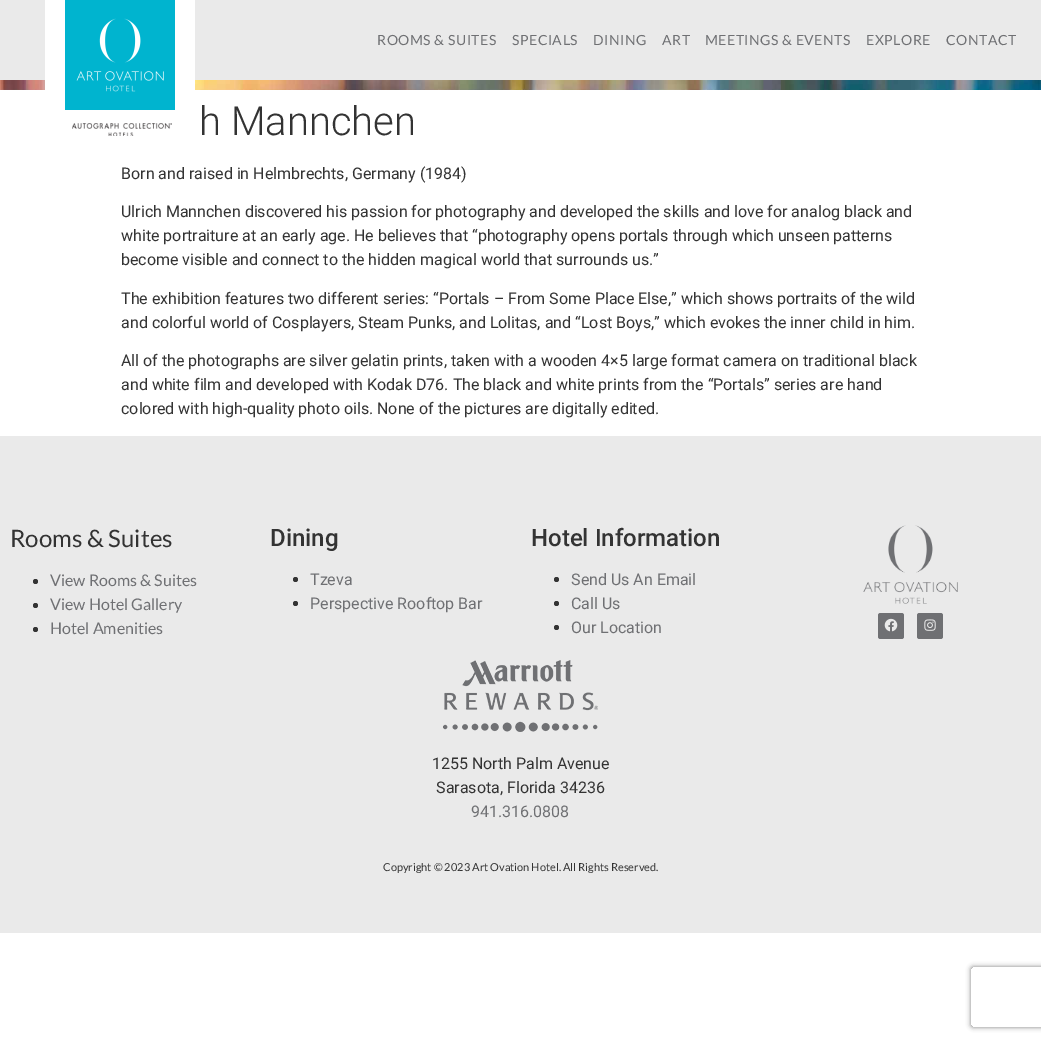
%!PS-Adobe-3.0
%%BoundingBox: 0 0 1041 1041
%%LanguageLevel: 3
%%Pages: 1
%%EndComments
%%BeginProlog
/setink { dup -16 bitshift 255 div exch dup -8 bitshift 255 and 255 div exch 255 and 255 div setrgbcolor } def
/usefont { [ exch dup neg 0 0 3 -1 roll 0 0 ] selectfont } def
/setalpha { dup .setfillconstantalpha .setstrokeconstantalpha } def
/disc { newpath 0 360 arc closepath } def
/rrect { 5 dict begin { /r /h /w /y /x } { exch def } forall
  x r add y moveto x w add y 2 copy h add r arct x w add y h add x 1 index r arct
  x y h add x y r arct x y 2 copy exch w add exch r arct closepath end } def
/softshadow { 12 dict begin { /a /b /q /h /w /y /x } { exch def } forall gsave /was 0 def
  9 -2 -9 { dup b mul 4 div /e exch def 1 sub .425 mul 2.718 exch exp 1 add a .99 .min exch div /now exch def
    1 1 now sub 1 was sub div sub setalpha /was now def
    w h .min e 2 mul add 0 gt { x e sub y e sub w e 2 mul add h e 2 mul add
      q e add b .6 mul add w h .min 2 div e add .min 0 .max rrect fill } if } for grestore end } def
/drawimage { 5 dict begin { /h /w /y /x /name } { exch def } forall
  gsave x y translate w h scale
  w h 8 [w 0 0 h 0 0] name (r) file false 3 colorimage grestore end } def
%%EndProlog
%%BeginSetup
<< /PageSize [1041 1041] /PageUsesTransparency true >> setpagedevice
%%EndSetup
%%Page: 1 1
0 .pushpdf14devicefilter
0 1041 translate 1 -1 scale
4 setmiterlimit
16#FFFFFF setink
0 0 1041 1041 rectfill
16#EAEAEA setink
0 0 1041 80 rectfill
(img3.raw) 0 80 1041 10 drawimage
[
    [65 0 110 110 16#00B4CF]
    [175 0 20 90 16#FFFFFF]
    [45 0 20 90 16#FFFFFF]
] { aload pop setink rectfill } forall
(img1.raw) 76 18 88 74 drawimage
(img2.raw) 72 123 100 13 drawimage
/Lato-Regular 14 usefont
16#6F7073 setink
377 45 moveto 0.5 0 (ROOMS & SUITES) ashow
512 45 moveto 0.5 0 (SPECIALS) ashow
593 45 moveto 0.5 0 (DINING) ashow
662 45 moveto 0.5 0 (ART) ashow
705 45 moveto 0.5 0 (MEETINGS & EVENTS) ashow
866 45 moveto 0.5 0 (EXPLORE) ashow
946 45 moveto 0.5 0 (CONTACT) ashow
/Roboto-Light 40 usefont
16#333333 setink
199 135 moveto (h Mannchen) show
/Roboto-Regular 16 usefont
[
    [(Born and raised in Helmbrechts, Germany \(1984\)) 121 179]
    [(Ulrich Mannchen discovered his passion for photography and developed the skills and love for analog black and) 121 217]
    [(white portraiture at an early age. He believes that “photography opens portals through which unseen patterns) 121 241]
    [(become visible and connect to the hidden magical world that surrounds us.”) 121 265]
    [(The exhibition features two different series: “Portals – From Some Place Else,” which shows portraits of the wild) 121 304]
    [(and colorful world of Cosplayers, Steam Punks, and Lolitas, and “Lost Boys,” which evokes the inner child in him.) 121 328]
    [(All of the photographs are silver gelatin prints, taken with a wooden 4×5 large format camera on traditional black) 121 366]
    [(and white film and developed with Kodak D76. The black and white prints from the “Portals” series are hand) 121 390]
    [(colored with high-quality photo oils. None of the pictures are digitally edited.) 121 414]
] { aload pop moveto show } forall
16#EAEAEA setink
0 436 1041 497 rectfill
/Lato-Regular 24 usefont
16#333333 setink
10 547 moveto (Rooms & Suites) show
35.5 581.5 2.5 disc fill
/Lato-Regular 16 usefont
16#6F7073 setink
50 586 moveto (View Rooms & Suites) show
16#333333 setink
35.5 605.5 2.5 disc fill
16#6F7073 setink
50 610 moveto (View Hotel Gallery) show
16#333333 setink
35.5 629.5 2.5 disc fill
16#6F7073 setink
50 634 moveto (Hotel Amenities) show
/Roboto-Medium 24 usefont
16#333333 setink
270 546 moveto (Dining) show
295.5 579.5 2.5 disc fill
/Roboto-Regular 16 usefont
16#6F7073 setink
310 585 moveto (Tzeva) show
16#333333 setink
295.5 603.5 2.5 disc fill
16#6F7073 setink
310 609 moveto (Perspective Rooftop Bar) show
/Roboto-Medium 24 usefont
16#333333 setink
531 546 moveto (Hotel Information) show
556.5 579.5 2.5 disc fill
/Roboto-Regular 16 usefont
16#6F7073 setink
571 585 moveto (Send Us An Email) show
16#333333 setink
556.5 603.5 2.5 disc fill
16#6F7073 setink
571 609 moveto (Call Us) show
16#333333 setink
556.5 627.5 2.5 disc fill
16#6F7073 setink
571 633 moveto (Our Location) show
(img4.raw) 863 525 95 79 drawimage
878 613 26 26 2.5 rrect fill
(img5.raw) 884 618 14 14 drawimage
917 613 26 26 2.5 rrect fill
(img6.raw) 924 619 12 12 drawimage
(img7.raw) 443 660 155 72 drawimage
16#333333 setink
432 769 moveto (1255 North Palm Avenue) show
436 793 moveto (Sarasota, Florida 34236) show
16#6F7073 setink
471 817 moveto (941.316.0808) show
/Lato-Regular 11 usefont
16#333333 setink
383 871 moveto (Copyright © 2023 Art Ovation Hotel. All Rights Reserved.) show
gsave
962 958 moveto 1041 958 lineto 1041 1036 lineto 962 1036 lineto closepath 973 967 moveto 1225 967 lineto 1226 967 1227 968 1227 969 curveto 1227 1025 lineto 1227 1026 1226 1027 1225 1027 curveto 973 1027 lineto 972 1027 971 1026 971 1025 curveto 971 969 lineto 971 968 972 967 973 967 curveto closepath eoclip newpath
16#808080 setink
971 967 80 60 2 2.5 1 softshadow
grestore
.poppdf14devicefilter showpage
%%EOF
